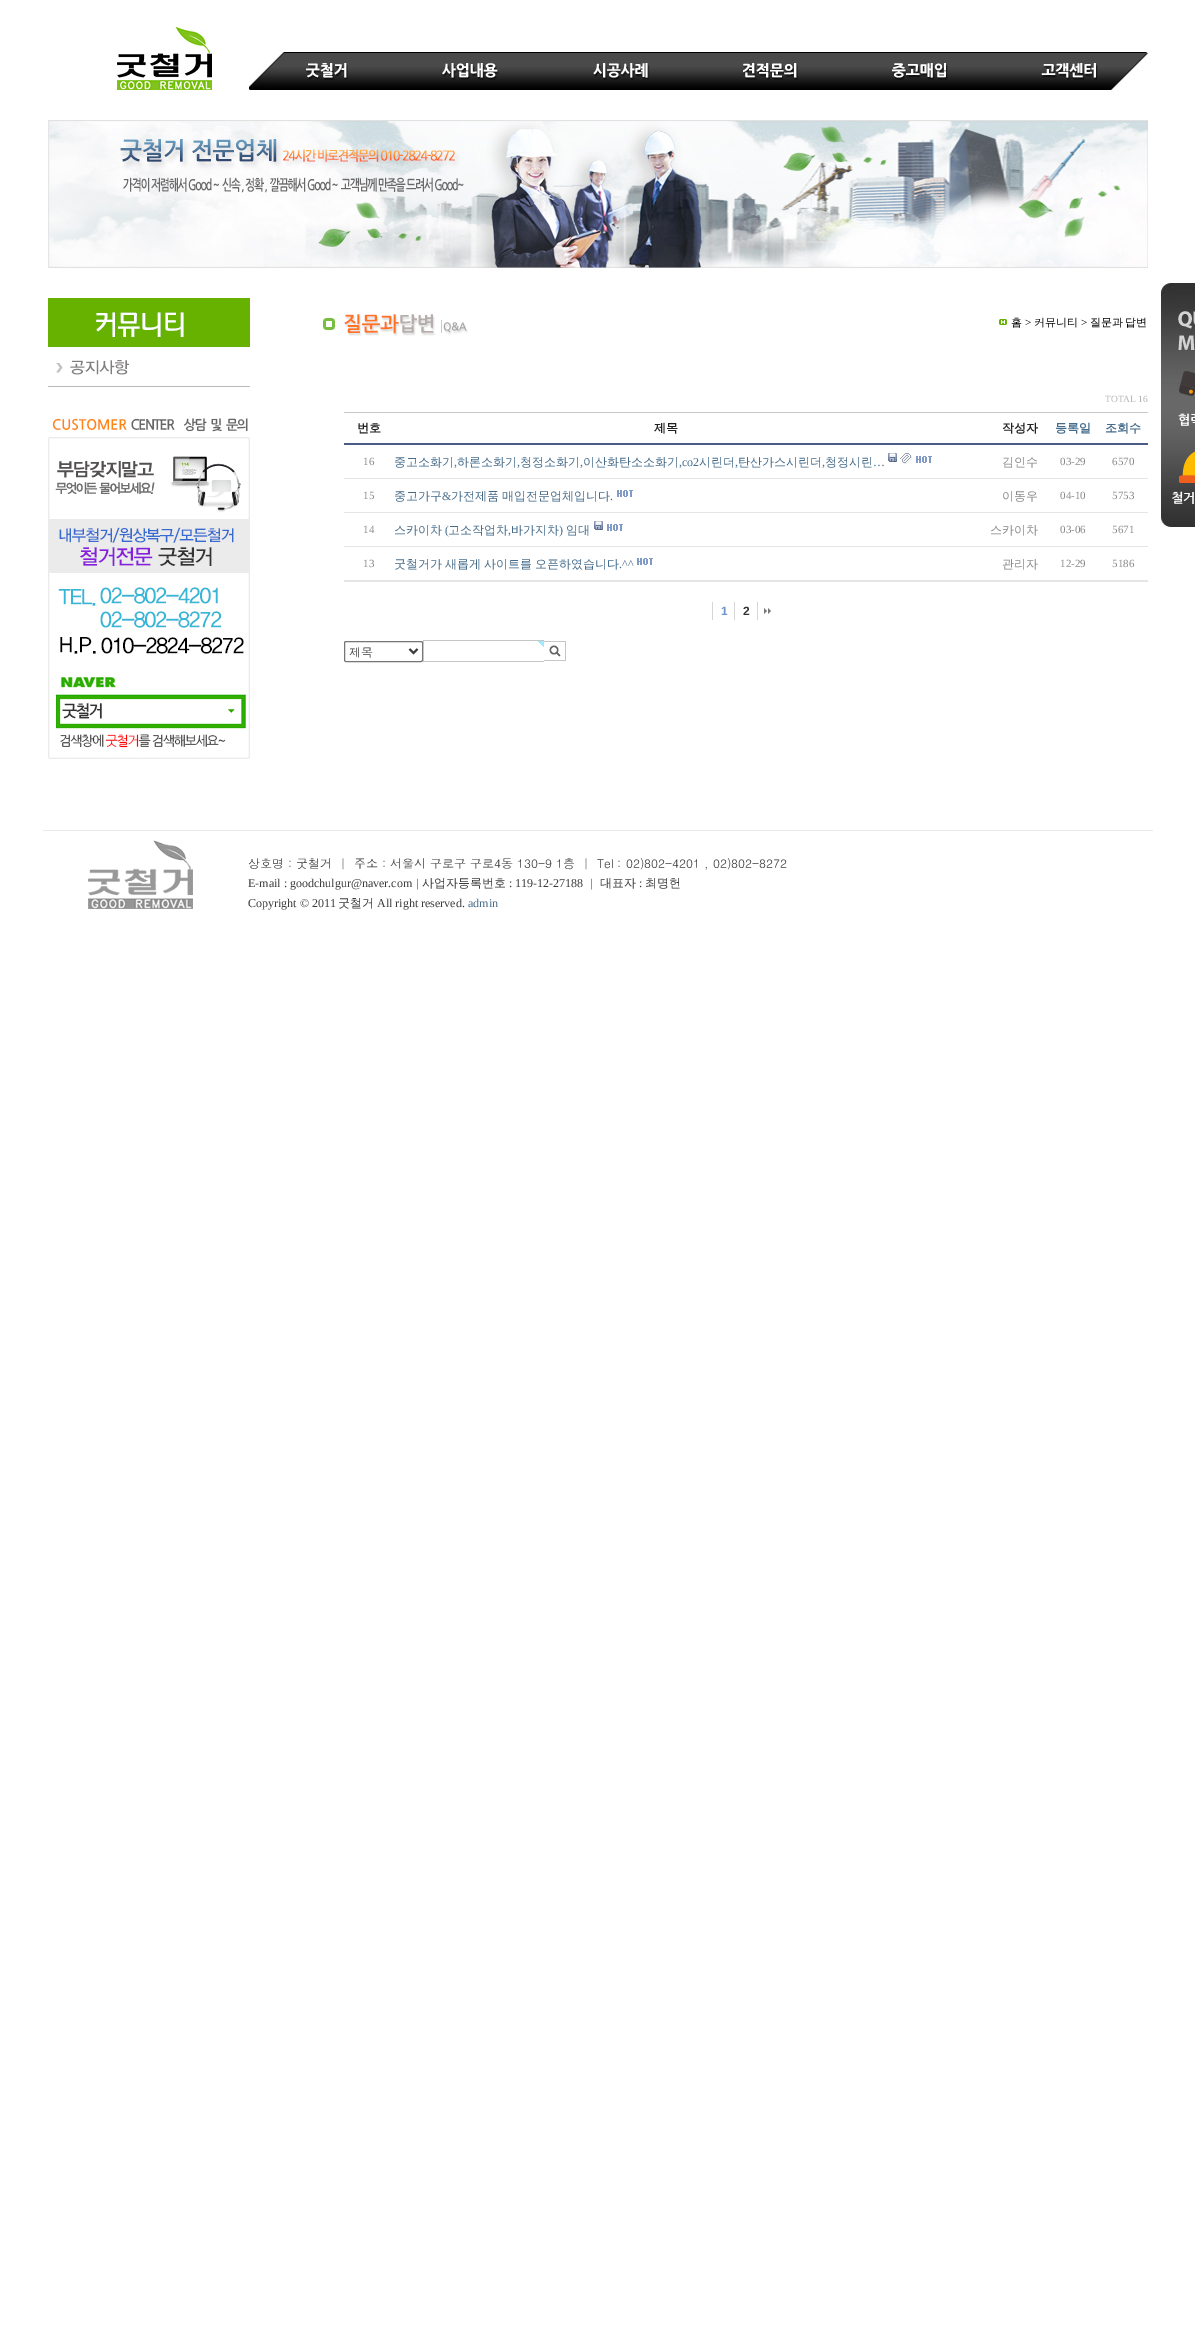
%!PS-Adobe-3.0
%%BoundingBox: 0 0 1195 2334
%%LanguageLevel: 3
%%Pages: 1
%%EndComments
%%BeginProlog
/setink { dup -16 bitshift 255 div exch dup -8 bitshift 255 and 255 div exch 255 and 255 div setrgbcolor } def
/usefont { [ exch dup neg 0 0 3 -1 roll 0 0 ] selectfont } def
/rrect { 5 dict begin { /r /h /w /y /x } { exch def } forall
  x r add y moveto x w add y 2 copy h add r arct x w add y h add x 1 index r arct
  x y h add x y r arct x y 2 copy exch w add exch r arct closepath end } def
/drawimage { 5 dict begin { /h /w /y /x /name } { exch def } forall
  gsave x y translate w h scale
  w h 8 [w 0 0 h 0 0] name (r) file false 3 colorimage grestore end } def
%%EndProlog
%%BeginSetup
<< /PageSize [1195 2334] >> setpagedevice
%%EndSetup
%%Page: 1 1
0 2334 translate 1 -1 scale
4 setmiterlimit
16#FFFFFF setink
0 0 1195 2334 rectfill
(img1.raw) 117 27 95 63 drawimage
(img2.raw) 249 52 899 38 drawimage
(img3.raw) 306 63 42 17 drawimage
(img4.raw) 442 63 57 17 drawimage
(img5.raw) 593 63 57 17 drawimage
(img6.raw) 743 63 55 17 drawimage
(img7.raw) 892 63 56 17 drawimage
(img8.raw) 1041 63 57 17 drawimage
(img9.raw) 48 120 1100 148 drawimage
(img10.raw) 48 298 202 49 drawimage
16#BAB9B9 setink
48 386 202 1 rectfill
(img11.raw) 56 360 73 15 drawimage
(img12.raw) 48 418 202 341 drawimage
(img13.raw) 323 314 145 22 drawimage
(img14.raw) 999 319 8 6 drawimage
/WenQuanYiZenHei-Medium 11 usefont
16#000000 setink
1011 326 moveto (홈) show
/LiberationSerif-Regular 11 usefont
1025 326 moveto (>) show
/WenQuanYiZenHei-Medium 11 usefont
1034 326 moveto (커뮤니티) show
/LiberationSerif-Regular 11 usefont
1081 326 moveto (>) show
/WenQuanYiZenHei-Medium 11 usefont
1090 326 moveto -1 0 32 (질문과 답변) widthshow
/LiberationSerif-Regular 9.5 usefont
16#B5B5B5 setink
1105 402 moveto (TOTAL 16) show
16#C7C7C7 setink
344 412 804 1 rectfill
/WenQuanYiZenHei-Bold 12 usefont
16#222222 setink
[
    [(번호) 357 432]
    [(제목) 654 432]
    [(작성자) 1002 432]
] { aload pop moveto show } forall
16#466C8A setink
1055 432 moveto (등록일) show
1105 432 moveto (조회수) show
16#495D84 setink
344 443 804 2 rectfill
/LiberationSerif-Regular 11 usefont
16#898989 setink
363 465 moveto (16) show
/WenQuanYiZenHei-Medium 12 usefont
16#466C8A setink
394 466 moveto (중고소화기) show
/LiberationSerif-Regular 12 usefont
454 466 moveto (,) show
/WenQuanYiZenHei-Medium 12 usefont
457 466 moveto (하론소화기) show
/LiberationSerif-Regular 12 usefont
517 466 moveto (,) show
/WenQuanYiZenHei-Medium 12 usefont
520 466 moveto (청정소화기) show
/LiberationSerif-Regular 12 usefont
580 466 moveto (,) show
/WenQuanYiZenHei-Medium 12 usefont
583 466 moveto (이산화탄소소화기) show
/LiberationSerif-Regular 12 usefont
679 466 moveto (,co2) show
/WenQuanYiZenHei-Medium 12 usefont
699 466 moveto (시린더) show
/LiberationSerif-Regular 12 usefont
735 466 moveto (,) show
/WenQuanYiZenHei-Medium 12 usefont
738 466 moveto (탄산가스시린더) show
/LiberationSerif-Regular 12 usefont
822 466 moveto (,) show
/WenQuanYiZenHei-Medium 12 usefont
825 466 moveto (청정시린) show
/LiberationSerif-Regular 12 usefont
873 466 moveto (…) show
(img15.raw) 888 453 9 9 drawimage
(img16.raw) 900 453 12 11 drawimage
(img17.raw) 916 456 16 7 drawimage
/WenQuanYiZenHei-Medium 12 usefont
16#898989 setink
1002 466 moveto (김인수) show
/LiberationSerif-Regular 11 usefont
1060 465 moveto (03-29) show
1112 465 moveto (6570) show
16#E5E5E5 setink
344 478 804 1 rectfill
16#898989 setink
363 499 moveto (15) show
/WenQuanYiZenHei-Medium 12 usefont
16#466C8A setink
394 500 moveto (중고가구) show
/LiberationSerif-Regular 12 usefont
442 500 moveto (&) show
/WenQuanYiZenHei-Medium 12 usefont
451 500 moveto -0.5 0 32 (가전제품 매입전문업체입니다) widthshow
/LiberationSerif-Regular 12 usefont
610 500 moveto (.) show
(img17.raw) 617 490 16 7 drawimage
/WenQuanYiZenHei-Medium 12 usefont
16#898989 setink
1002 500 moveto (이동우) show
/LiberationSerif-Regular 11 usefont
1060 499 moveto (04-10) show
1112 499 moveto (5753) show
16#E5E5E5 setink
344 512 804 1 rectfill
16#898989 setink
363 533 moveto (14) show
/WenQuanYiZenHei-Medium 12 usefont
16#466C8A setink
394 534 moveto (스카이차) show
/LiberationSerif-Regular 12 usefont
445 534 moveto (\() show
/WenQuanYiZenHei-Medium 12 usefont
448 534 moveto (고소작업차) show
/LiberationSerif-Regular 12 usefont
508 534 moveto (,) show
/WenQuanYiZenHei-Medium 12 usefont
511 534 moveto (바가지차) show
/LiberationSerif-Regular 12 usefont
559 534 moveto (\)) show
/WenQuanYiZenHei-Medium 12 usefont
566 534 moveto (임대) show
(img15.raw) 594 521 9 9 drawimage
(img17.raw) 607 524 16 7 drawimage
16#898989 setink
990 534 moveto (스카이차) show
/LiberationSerif-Regular 11 usefont
1060 533 moveto (03-06) show
1112 533 moveto (5671) show
16#E5E5E5 setink
344 546 804 1 rectfill
16#898989 setink
363 567 moveto (13) show
/WenQuanYiZenHei-Medium 12 usefont
16#466C8A setink
394 568 moveto -0.5 0 32 (굿철거가 새롭게 사이트를 오픈하였습니다) widthshow
/LiberationSerif-Regular 12 usefont
619 568 moveto (.^^) show
(img17.raw) 637 558 16 7 drawimage
/WenQuanYiZenHei-Medium 12 usefont
16#898989 setink
1002 568 moveto (관리자) show
/LiberationSerif-Regular 11 usefont
1060 567 moveto (12-29) show
1112 567 moveto (5186) show
16#E5E5E5 setink
344 580 804 2 rectfill
16#D6D6D6 setink
712 602 1 18 rectfill
/LiberationSans-Bold 12 usefont
16#7494CD setink
721 615 moveto (1) show
16#D6D6D6 setink
757 602 1 18 rectfill
734 602 1 18 rectfill
16#323232 setink
743 615 moveto (2) show
16#777777 setink
764 614 moveto 764 608 lineto 767 611 lineto closepath 768 614 moveto 768 608 lineto 771 611 lineto closepath fill
16#767676 setink
344.5 641.5 78 20 1.5 rrect stroke
16#3B3B3B setink
2 setlinewidth
409.5 649 moveto 413.5 653 lineto 417.5 649 lineto stroke
/Dotum-Regular 12 usefont
349 657 moveto (제목) show
(img18.raw) 538 641 6 6 drawimage
[
    [423 640 121 1 16#C6C6C6]
    [423 661 121 1 16#C6C6C6]
    [423 640 1 22 16#C6C6C6]
] { aload pop setink rectfill } forall
(img19.raw) 544 641 22 20 drawimage
(img20.raw) 1161 283 34 244 drawimage
(img21.raw) 1178 311 17 39 drawimage
(img22.raw) 1178 371 17 55 drawimage
(img23.raw) 1172 451 23 53 drawimage
16#E9E9E9 setink
43 830 1110 1 rectfill
(img24.raw) 88 840 105 69 drawimage
16#3B3B3B setink
[
    [(상호명 : 굿철거) 248 868]
    [(|) 340 868]
    [(주소 : 서울시 구로구 구로4동 130-9 1층) 354 868]
    [(|) 583 868]
    [(Tel : 02\)802-4201 , 02\)802-8272) 597 868]
] { aload pop moveto show } forall
/LiberationSerif-Regular 12 usefont
248 887 moveto (E-mail : goodchulgur@naver.com) show
416 887 moveto (|) show
/WenQuanYiZenHei-Medium 12 usefont
422 887 moveto (사업자등록번호) show
/LiberationSerif-Regular 12 usefont
509 887 moveto (: 119-12-27188) show
590 887 moveto (|) show
/WenQuanYiZenHei-Medium 12 usefont
600 887 moveto (대표자) show
/LiberationSerif-Regular 12 usefont
639 887 moveto (:) show
/WenQuanYiZenHei-Medium 12 usefont
645 887 moveto (최명헌) show
/LiberationSerif-Regular 12 usefont
248 907 moveto (Copyright © 2011) show
/WenQuanYiZenHei-Medium 12 usefont
338 907 moveto (굿철거) show
/LiberationSerif-Regular 12 usefont
377 907 moveto (All right reserved.) show
16#466C8A setink
468 907 moveto (admin) show
showpage
%%EOF
